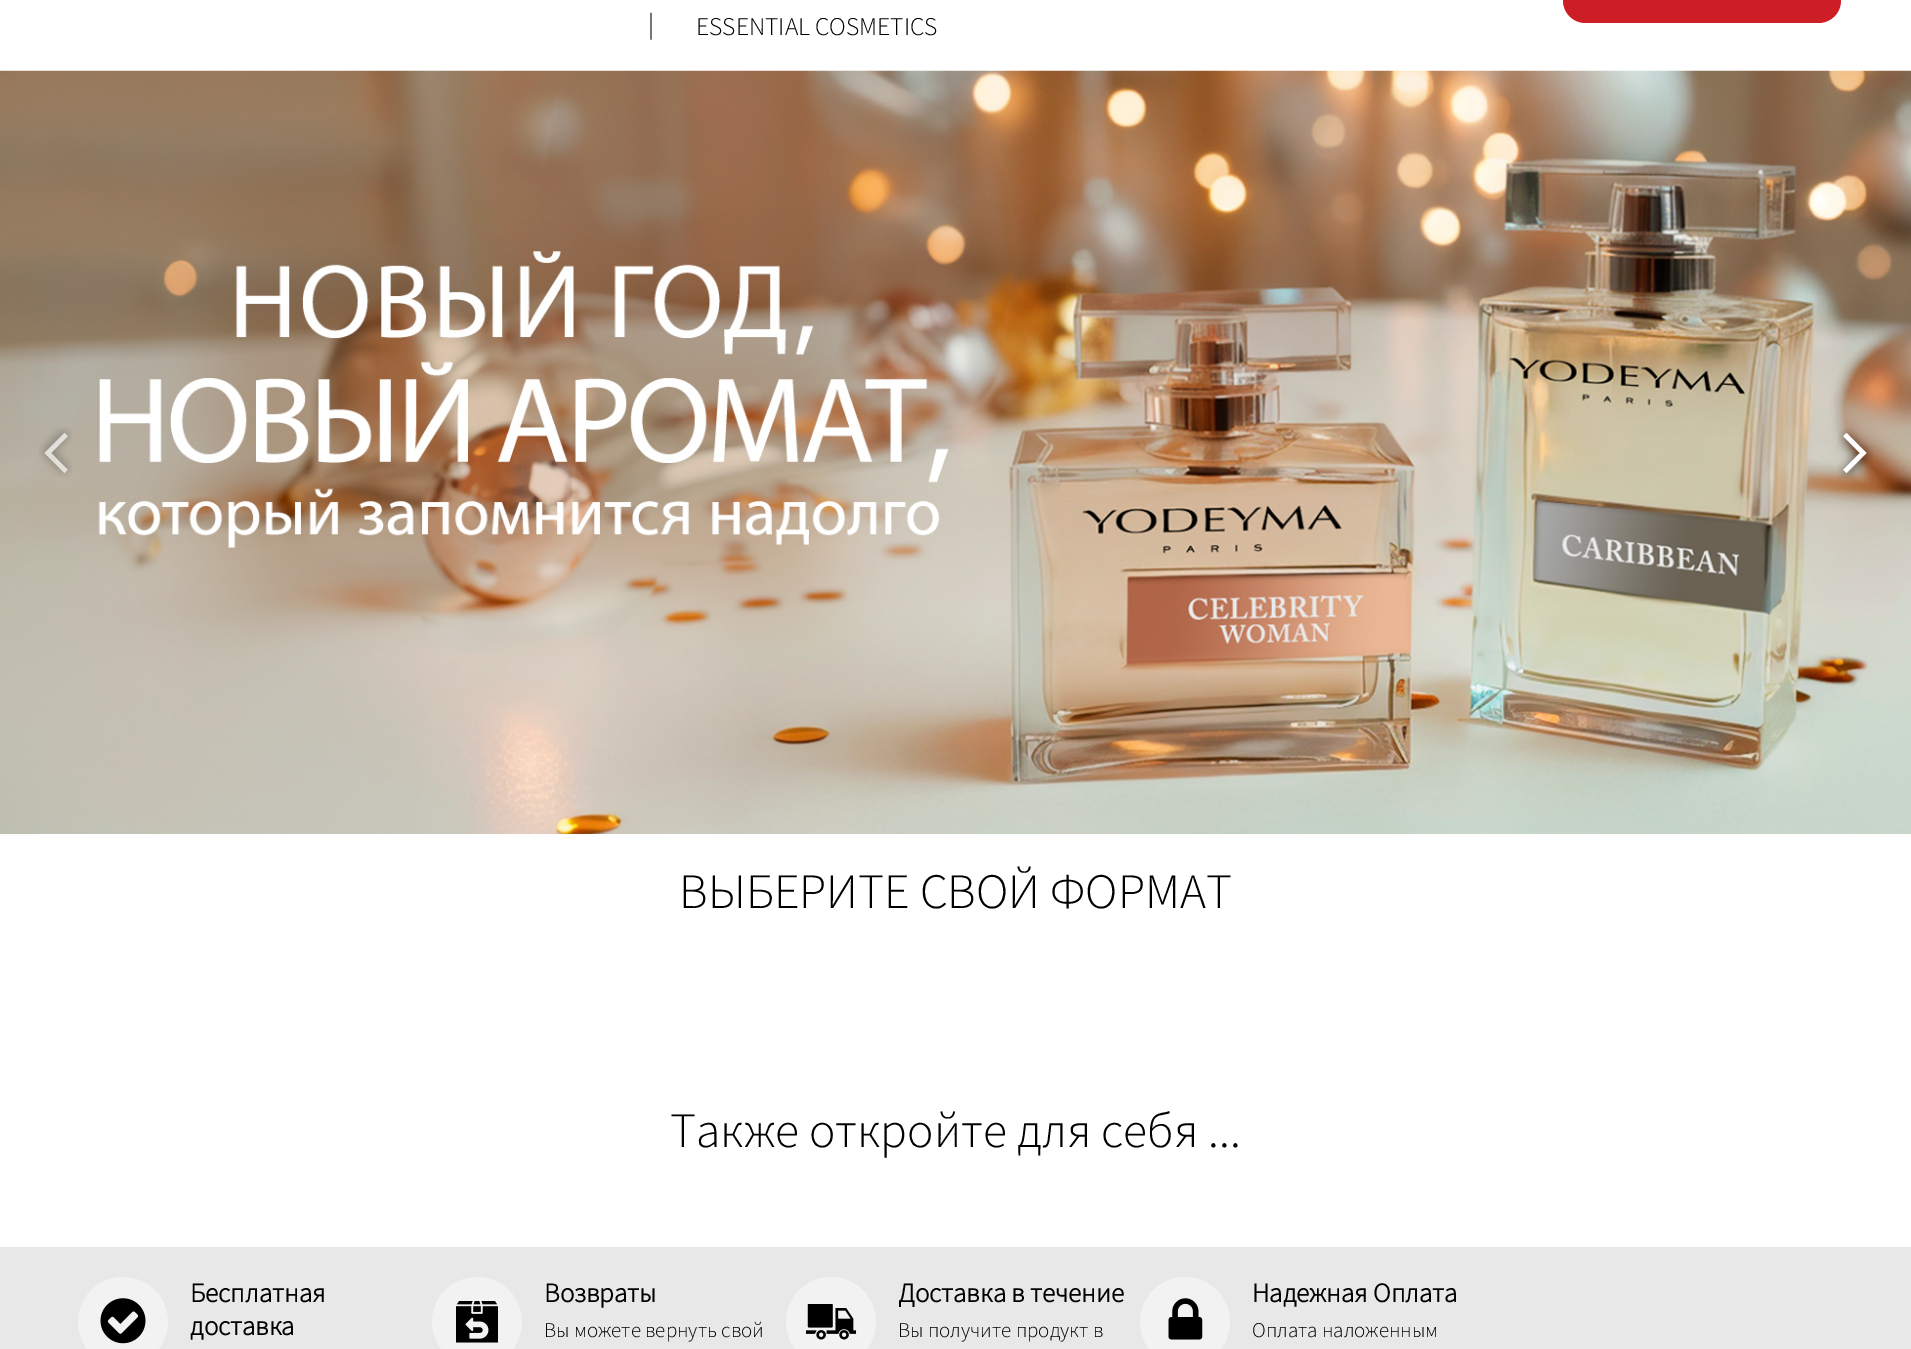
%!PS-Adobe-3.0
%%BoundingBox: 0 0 1911 1349
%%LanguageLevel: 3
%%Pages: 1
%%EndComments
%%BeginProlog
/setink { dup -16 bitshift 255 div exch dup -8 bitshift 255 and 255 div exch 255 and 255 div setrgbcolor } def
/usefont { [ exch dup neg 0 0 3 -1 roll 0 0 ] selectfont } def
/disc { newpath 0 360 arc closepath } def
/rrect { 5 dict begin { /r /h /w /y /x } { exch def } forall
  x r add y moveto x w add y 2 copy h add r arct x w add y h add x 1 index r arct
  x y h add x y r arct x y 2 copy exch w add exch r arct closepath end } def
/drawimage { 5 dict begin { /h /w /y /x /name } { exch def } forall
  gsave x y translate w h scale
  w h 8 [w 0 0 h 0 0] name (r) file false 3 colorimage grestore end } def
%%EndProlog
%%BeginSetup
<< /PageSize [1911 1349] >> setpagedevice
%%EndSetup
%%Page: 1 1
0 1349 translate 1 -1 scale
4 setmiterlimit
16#FFFFFF setink
0 0 1911 1349 rectfill
16#CE1E25 setink
1563 -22 278 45 22.5 rrect fill
/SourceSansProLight-Light 27 usefont
16#000000 setink
648 33 moveto (|) show
/SourceSansProLight-Light 25.5 usefont
696 35 moveto (ESSENTIAL COSMETICS) show
(img1.raw) 0 70 1911 764 drawimage
(img2.raw) 38 427 34 50 drawimage
(img3.raw) 1837 428 36 51 drawimage
/SourceSansProLight-Light 49.5 usefont
679 908 moveto (ВЫБЕРИТЕ СВОЙ ФОРМАТ) show
670 1147 moveto (Также откройте для себя ...) show
16#E8E8E9 setink
0 1247 1911 102 rectfill
16#F2F2F2 setink
123 1322 45 disc fill
(img4.raw) 100 1298 46 46 drawimage
/SourceSansProLight-Bold 27 usefont
16#000000 setink
190 1302 moveto (Бесплатная) show
190 1335 moveto (доставка) show
16#F2F2F2 setink
477 1322 45 disc fill
(img5.raw) 456 1301 42 42 drawimage
16#000000 setink
544 1302 moveto (Возвраты) show
/SourceSansProLight-Light 21 usefont
544 1337 moveto (Вы можете вернуть свой) show
16#F2F2F2 setink
831 1322 45 disc fill
(img6.raw) 806 1304 51 36 drawimage
/SourceSansProLight-Bold 27 usefont
16#000000 setink
898 1302 moveto (Доставка в течение) show
/SourceSansProLight-Light 21 usefont
898 1337 moveto (Вы получите продукт в) show
16#F2F2F2 setink
1185 1322 45 disc fill
(img7.raw) 1168 1298 35 42 drawimage
/SourceSansProLight-Bold 27 usefont
16#000000 setink
1252 1302 moveto (Надежная Оплата) show
/SourceSansProLight-Light 21 usefont
1252 1337 moveto (Оплата наложенным) show
showpage
%%EOF
